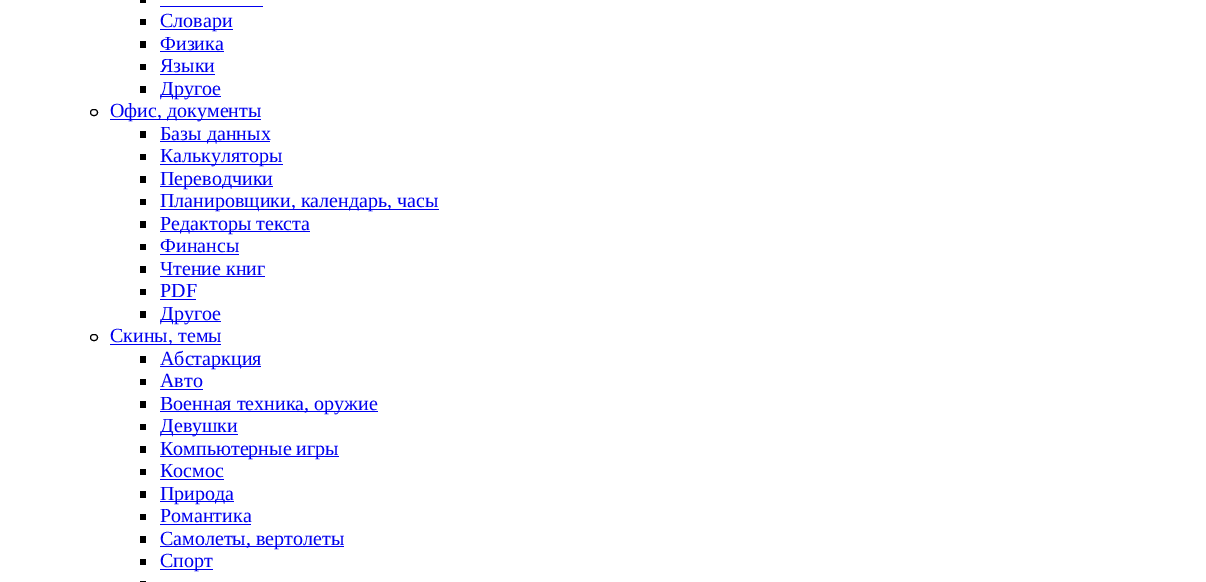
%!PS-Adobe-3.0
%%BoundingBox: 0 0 1206 582
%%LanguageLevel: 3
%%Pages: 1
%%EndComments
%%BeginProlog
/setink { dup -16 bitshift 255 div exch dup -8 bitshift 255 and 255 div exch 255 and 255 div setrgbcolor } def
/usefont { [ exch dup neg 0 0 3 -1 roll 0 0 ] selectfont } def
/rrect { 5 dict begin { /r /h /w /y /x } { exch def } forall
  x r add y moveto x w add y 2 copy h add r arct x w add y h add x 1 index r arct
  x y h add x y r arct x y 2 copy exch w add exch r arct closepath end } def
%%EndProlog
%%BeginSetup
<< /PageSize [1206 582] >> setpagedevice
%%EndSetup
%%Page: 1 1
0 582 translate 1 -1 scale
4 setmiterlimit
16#FFFFFF setink
0 0 1206 582 rectfill
[
    [140 0 6 3 16#000000]
    [160 6 103 1 16#0000EE]
    [140 19 6 6 16#000000]
    [160 29 73 1 16#0000EE]
] { aload pop setink rectfill } forall
/LiberationSerif-Regular 20 usefont
160 27 moveto (Словари) show
16#000000 setink
140 41 6 7 rectfill
16#0000EE setink
160 50 moveto (Физика) show
160 51 64 1 rectfill
16#000000 setink
140 64 6 6 rectfill
16#0000EE setink
160 72 moveto (Языки) show
[
    [160 74 55 1 16#0000EE]
    [140 86 6 7 16#000000]
    [160 96 61 1 16#0000EE]
] { aload pop setink rectfill } forall
160 95 moveto (Другое) show
16#000000 setink
90.5 109.5 7 6 3 rrect stroke
16#0000EE setink
110 119 151 1 rectfill
110 117 moveto (Офис, документы) show
16#000000 setink
140 131 6 7 rectfill
16#0000EE setink
160 141 110 1 rectfill
160 140 moveto (Базы данных) show
16#000000 setink
140 154 6 6 rectfill
16#0000EE setink
160 164 123 1 rectfill
160 162 moveto (Калькуляторы) show
16#000000 setink
140 176 6 7 rectfill
16#0000EE setink
160 186 113 1 rectfill
160 185 moveto (Переводчики) show
16#000000 setink
140 199 6 6 rectfill
16#0000EE setink
160 209 279 1 rectfill
160 207 moveto (Планировщики, календарь, часы) show
16#000000 setink
140 221 6 7 rectfill
16#0000EE setink
160 231 150 1 rectfill
160 230 moveto (Редакторы текста) show
16#000000 setink
140 244 6 6 rectfill
16#0000EE setink
160 252 moveto (Финансы) show
160 254 79 1 rectfill
16#000000 setink
140 266 6 7 rectfill
16#0000EE setink
160 275 moveto (Чтение книг) show
160 276 105 1 rectfill
16#000000 setink
140 289 6 6 rectfill
16#0000EE setink
160 297 moveto (PDF) show
[
    [160 299 36 1 16#0000EE]
    [140 311 6 7 16#000000]
    [160 321 61 1 16#0000EE]
] { aload pop setink rectfill } forall
160 320 moveto (Другое) show
16#000000 setink
90.5 334.5 7 6 3 rrect stroke
16#0000EE setink
110 344 111 1 rectfill
110 342 moveto (Скины, темы) show
16#000000 setink
140 356 6 7 rectfill
16#0000EE setink
160 366 101 1 rectfill
160 365 moveto (Абстаркция) show
16#000000 setink
140 379 6 6 rectfill
16#0000EE setink
160 387 moveto (Авто) show
[
    [160 389 43 1 16#0000EE]
    [140 401 6 7 16#000000]
    [160 411 218 1 16#0000EE]
] { aload pop setink rectfill } forall
160 410 moveto (Военная техника, оружие) show
16#000000 setink
140 424 6 6 rectfill
16#0000EE setink
160 434 78 1 rectfill
160 432 moveto (Девушки) show
16#000000 setink
140 446 6 7 rectfill
16#0000EE setink
160 456 179 1 rectfill
160 455 moveto (Компьютерные игры) show
16#000000 setink
140 469 6 6 rectfill
16#0000EE setink
160 477 moveto (Космос) show
[
    [160 479 64 1 16#0000EE]
    [140 491 6 7 16#000000]
    [160 501 74 1 16#0000EE]
] { aload pop setink rectfill } forall
160 500 moveto (Природа) show
16#000000 setink
140 514 6 6 rectfill
16#0000EE setink
160 522 moveto (Романтика) show
[
    [160 524 91 1 16#0000EE]
    [140 536 6 7 16#000000]
    [160 546 184 1 16#0000EE]
] { aload pop setink rectfill } forall
160 545 moveto (Самолеты, вертолеты) show
16#000000 setink
140 559 6 6 rectfill
16#0000EE setink
160 569 53 1 rectfill
160 567 moveto (Спорт) show
16#000000 setink
140 581 6 1 rectfill
showpage
%%EOF
